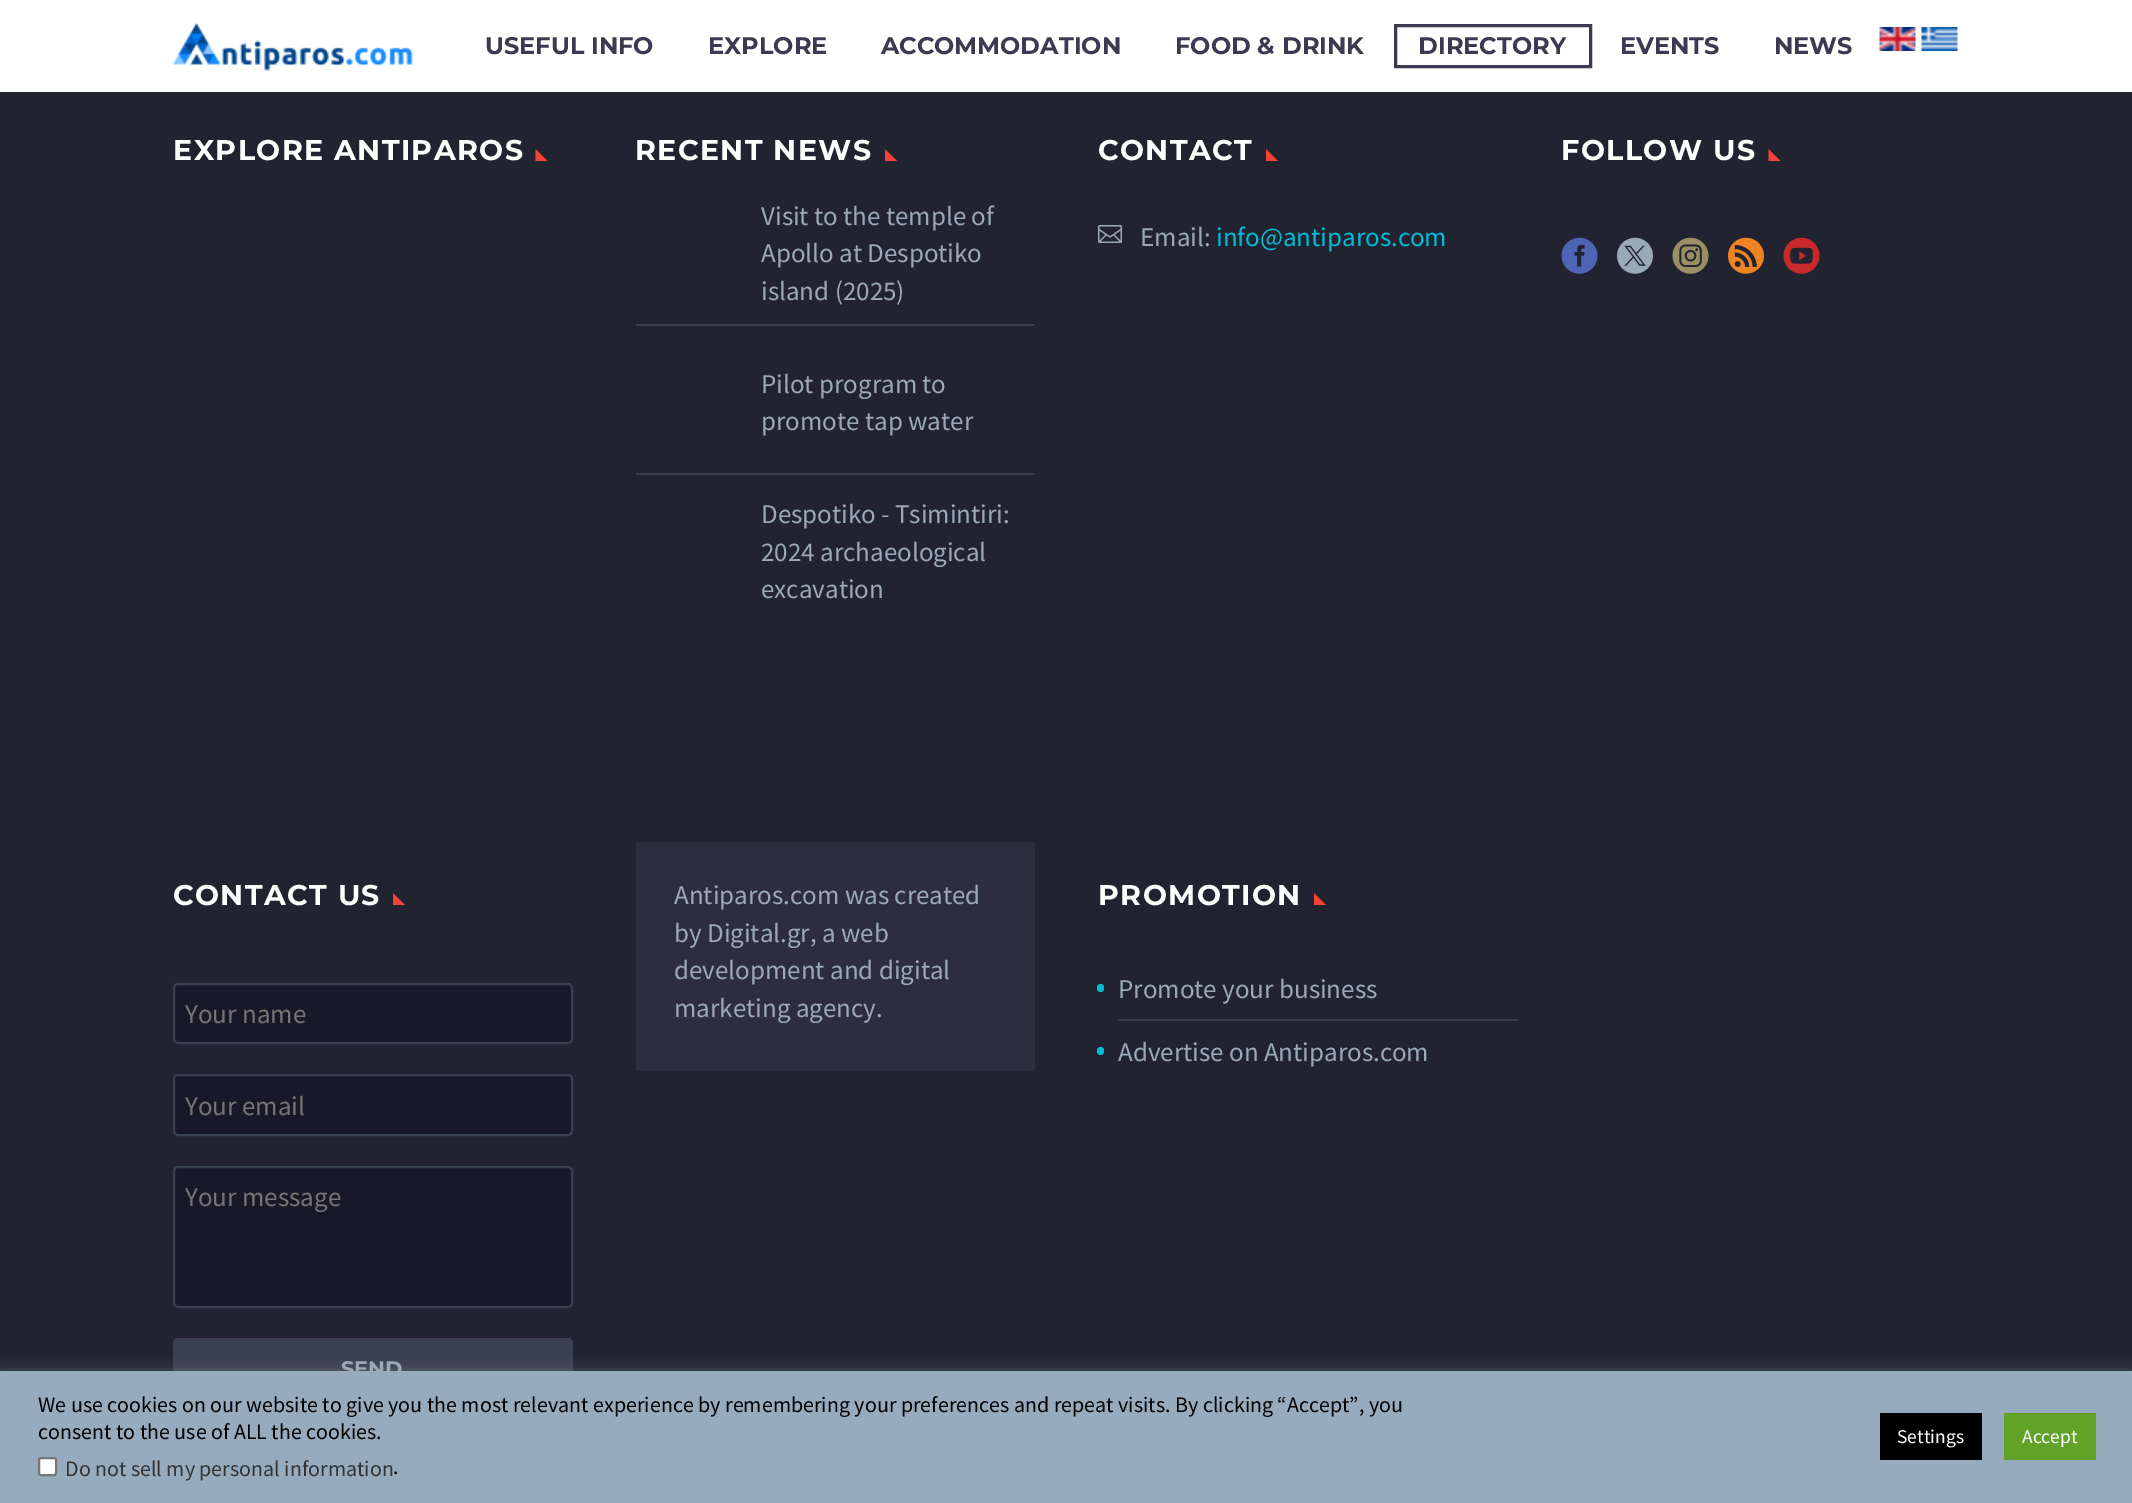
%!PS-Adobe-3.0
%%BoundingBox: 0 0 2132 1503
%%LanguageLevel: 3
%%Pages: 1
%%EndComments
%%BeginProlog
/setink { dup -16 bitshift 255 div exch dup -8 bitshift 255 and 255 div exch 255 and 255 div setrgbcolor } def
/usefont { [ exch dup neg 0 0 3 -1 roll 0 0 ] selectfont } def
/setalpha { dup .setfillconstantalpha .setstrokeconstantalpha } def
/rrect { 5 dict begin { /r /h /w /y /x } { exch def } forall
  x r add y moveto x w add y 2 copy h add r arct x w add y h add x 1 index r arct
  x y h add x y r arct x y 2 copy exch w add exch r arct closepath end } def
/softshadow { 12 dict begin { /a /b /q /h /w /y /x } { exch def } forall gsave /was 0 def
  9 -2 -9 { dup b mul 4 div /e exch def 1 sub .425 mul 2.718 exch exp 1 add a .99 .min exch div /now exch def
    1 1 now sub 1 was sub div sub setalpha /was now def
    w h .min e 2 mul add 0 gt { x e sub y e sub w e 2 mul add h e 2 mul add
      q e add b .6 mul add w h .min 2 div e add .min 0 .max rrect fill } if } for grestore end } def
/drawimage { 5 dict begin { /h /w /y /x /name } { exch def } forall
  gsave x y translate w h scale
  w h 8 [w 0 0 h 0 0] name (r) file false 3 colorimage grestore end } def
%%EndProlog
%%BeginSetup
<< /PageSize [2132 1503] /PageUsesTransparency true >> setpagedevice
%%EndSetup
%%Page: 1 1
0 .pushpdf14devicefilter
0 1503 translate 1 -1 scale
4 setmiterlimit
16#212331 setink
0 0 2132 1503 rectfill
16#FFFFFF setink
0 0 2132 92 rectfill
(img1.raw) 172 22 241 49 drawimage
/Montserrat-Bold 24 usefont
16#3C3950 setink
[
    [(USEFUL INFO) 485 54]
    [(EXPLORE) 708 54]
    [(ACCOMMODATION) 881 54]
    [(FOOD & DRINK) 1175 54]
] { aload pop moveto show } forall
3 setlinewidth
1395.5 25.5 195 41 rectstroke
[
    [(DIRECTORY) 1418 54]
    [(EVENTS) 1620 54]
    [(NEWS) 1774 54]
] { aload pop moveto show } forall
(img2.raw) 1879 27 37 24 drawimage
(img3.raw) 1921 27 37 24 drawimage
/Montserrat-Bold 28.5 usefont
16#FEFFFF setink
173 160 moveto 1.4 0 (EXPLORE ANTIPAROS) ashow
16#F44336 setink
535.5 149 moveto 535.5 161 lineto 547.5 161 lineto closepath fill
16#FEFFFF setink
635 160 moveto 1.4 0 (RECENT NEWS) ashow
16#F44336 setink
885 149 moveto 885 161 lineto 897 161 lineto closepath fill
16#393D50 setink
636 324 399 2 rectfill
/SourceSansPro-Regular 27 usefont
16#99A9B5 setink
[
    [(Visit to the temple of) 761 225]
    [(Apollo at Despotiko) 761 262]
    [(island \(2025\)) 761 300]
] { aload pop moveto show } forall
16#393D50 setink
636 473 399 2 rectfill
16#99A9B5 setink
[
    [(Pilot program to) 761 393]
    [(promote tap water) 761 430]
    [(Despotiko - Tsimintiri:) 761 523]
    [(2024 archaeological) 761 561]
    [(excavation) 761 598]
] { aload pop moveto show } forall
/Montserrat-Bold 28.5 usefont
16#FEFFFF setink
1098 160 moveto 1.4 0 (CONTACT) ashow
16#F44336 setink
1266 149 moveto 1266 161 lineto 1278 161 lineto closepath fill
(img4.raw) 1098 225 24 18 drawimage
/SourceSansPro-Regular 27 usefont
16#99A9B5 setink
1140 246 moveto (Email:) show
16#00BCD4 setink
1216 246 moveto (info@antiparos.com) show
/Montserrat-Bold 28.5 usefont
16#FEFFFF setink
1561 160 moveto 1.4 0 (FOLLOW US) ashow
16#F44336 setink
1768.5 149 moveto 1768.5 161 lineto 1780.5 161 lineto closepath fill
(img5.raw) 1561 237 37 37 drawimage
(img6.raw) 1617 237 36 37 drawimage
(img7.raw) 1672 237 37 37 drawimage
(img8.raw) 1728 237 36 37 drawimage
(img9.raw) 1783 237 37 37 drawimage
16#FEFFFF setink
173 905 moveto 1.4 0 (CONTACT US) ashow
16#F44336 setink
393 893 moveto 393 905 lineto 405 905 lineto closepath fill
16#181828 setink
174 984 398 59 4 rrect gsave fill grestore
16#394050 setink
2 setlinewidth
stroke
/SourceSansPro-Regular 27 usefont
16#757575 setink
185 1023 moveto (Your name) show
16#181828 setink
174 1075 398 60 4 rrect gsave fill grestore
16#394050 setink
stroke
16#757575 setink
185 1115 moveto (Your email) show
16#181828 setink
174 1167 398 140 4 rrect gsave fill grestore
16#394050 setink
stroke
16#757575 setink
185 1206 moveto (Your message) show
16#394050 setink
173 1338 400 60 5 rrect fill
/Montserrat-Bold 21 usefont
16#99A9B5 setink
341 1376 moveto (SEND) show
16#2C2E3D setink
636 842 399 229 rectfill
/SourceSansPro-Regular 27 usefont
16#99A9B5 setink
[
    [(Antiparos.com was created) 674 904]
    [(by Digital.gr, a web) 674 942]
    [(development and digital) 674 979]
    [(marketing agency.) 674 1017]
] { aload pop moveto show } forall
/Montserrat-Bold 28.5 usefont
16#FEFFFF setink
1098 905 moveto 1.4 0 (PROMOTION) ashow
16#F44336 setink
1314 893 moveto 1314 905 lineto 1326 905 lineto closepath fill
16#393D50 setink
1118 1019 400 2 rectfill
16#00BCD4 setink
1097 984 7 8 3.5 rrect fill
/SourceSansPro-Regular 27 usefont
16#99A9B5 setink
1118 998 moveto (Promote your business) show
16#00BCD4 setink
1097 1047 7 8 3.5 rrect fill
16#99A9B5 setink
1118 1061 moveto (Advertise on Antiparos.com) show
16#ACABAB setink
0 1370 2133 132 0 7.5 0.3 softshadow
16#97ABBF setink
0 1371 2132 132 rectfill
/SourceSansPro-Regular 22 usefont
16#000000 setink
38 1412 moveto (We use cookies on our website to give you the most relevant experience by remembering your preferences and repeat visits. By clicking “Accept”, you) show
38 1439 moveto (consent to the use of ALL the cookies.) show
16#FFFFFF setink
39 1458 17 17 2 rrect gsave fill grestore
16#767676 setink
stroke
16#333333 setink
65 1476 moveto (Do not sell my personal information) show
16#000000 setink
393 1474 moveto (.) show
1880 1413 102 47 rectfill
/SourceSansPro-Regular 19.5 usefont
16#FEFFFF setink
1897 1443 moveto (Settings) show
16#61A229 setink
2004 1413 92 47 rectfill
16#FEFFFF setink
2022 1443 moveto (Accept) show
.poppdf14devicefilter showpage
%%EOF
